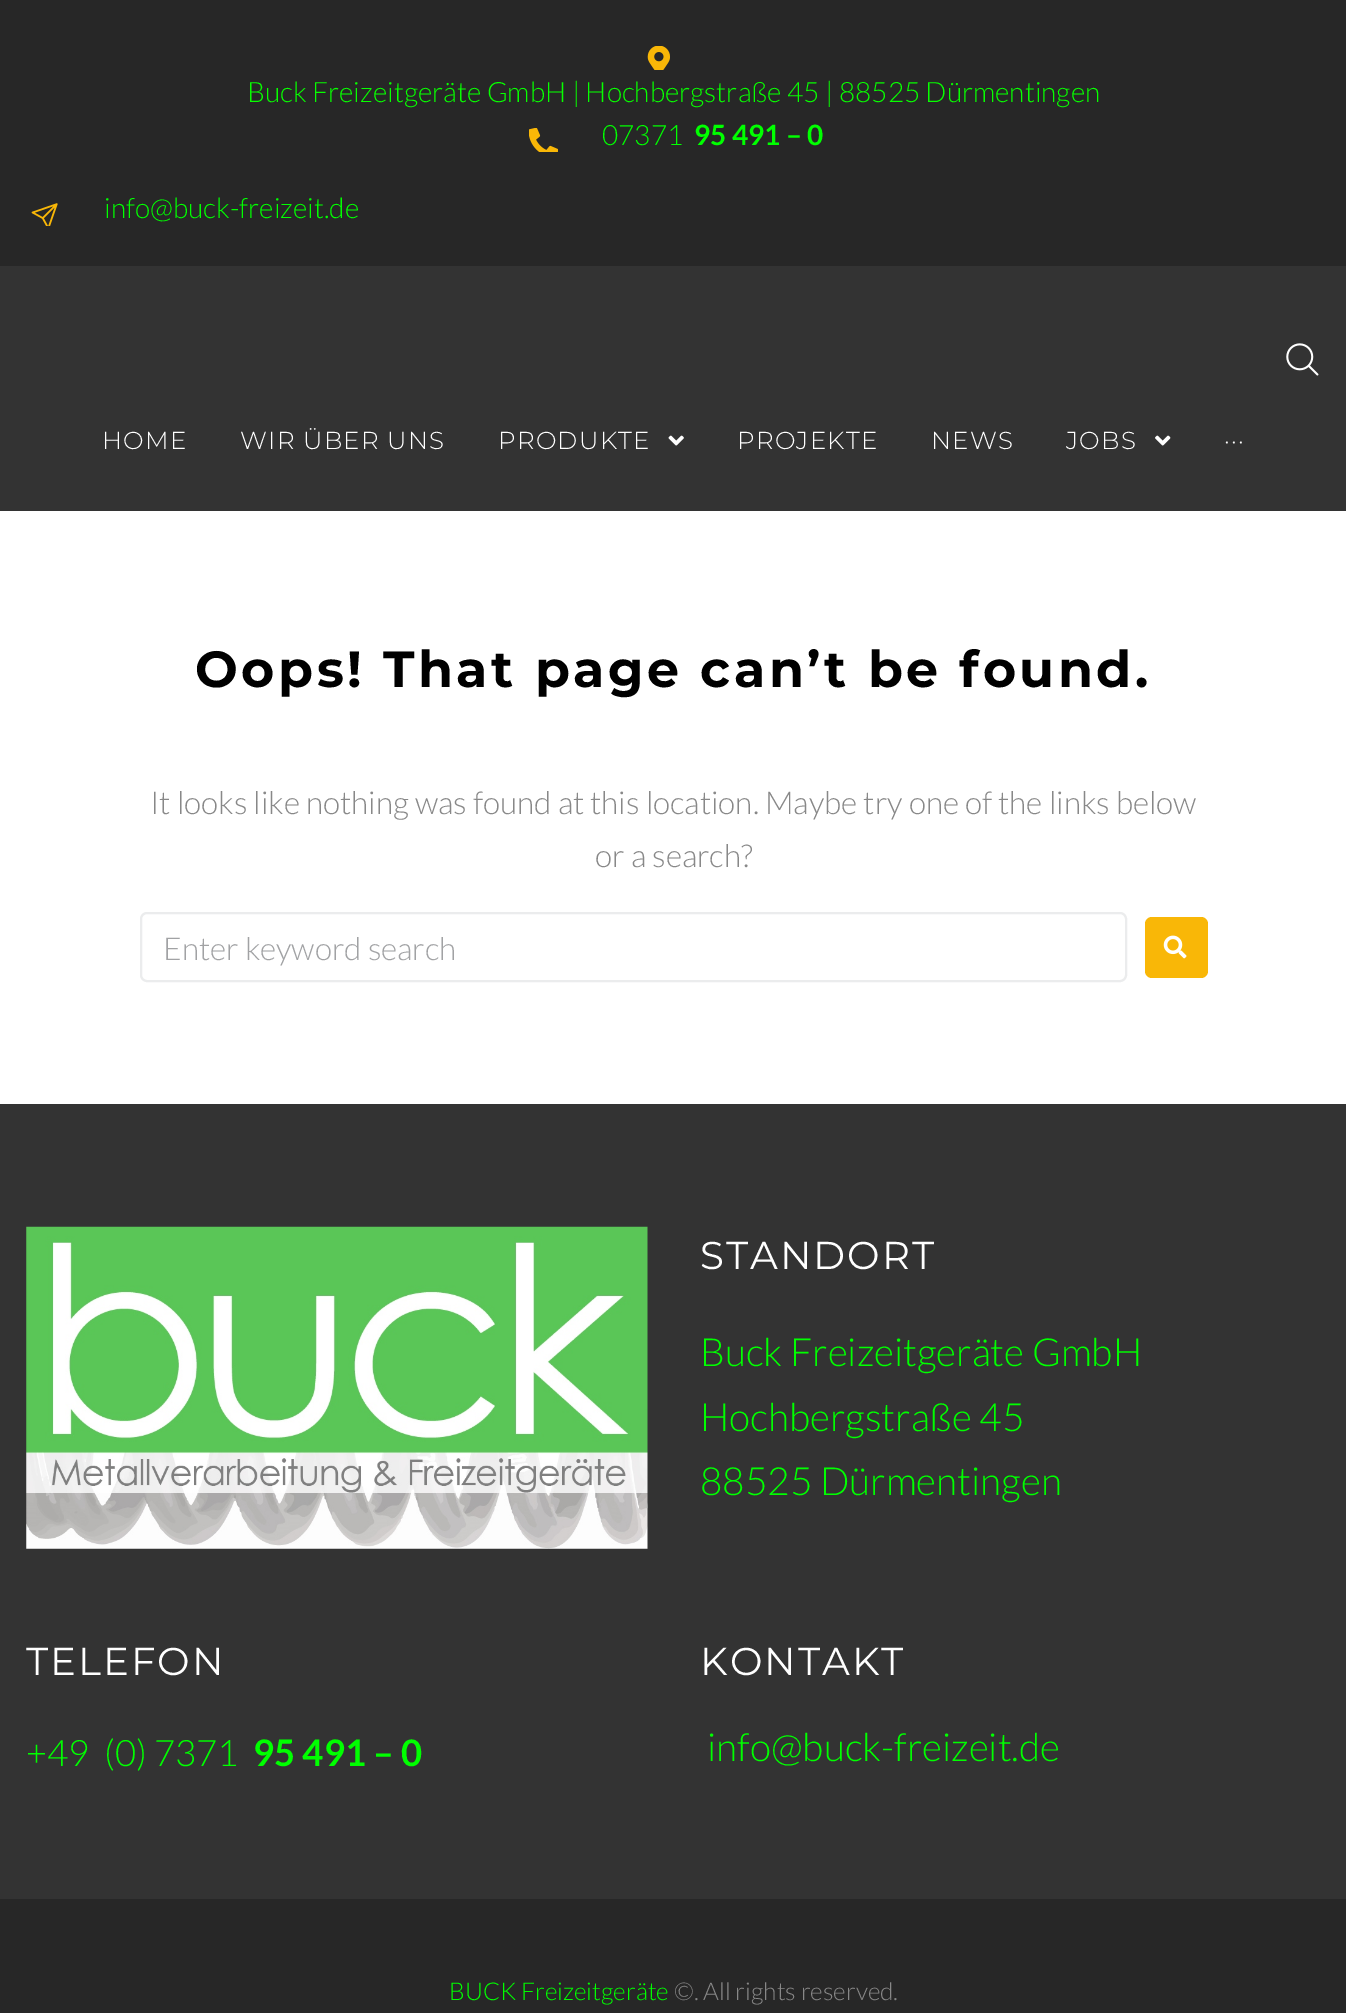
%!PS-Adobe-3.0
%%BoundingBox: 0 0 1346 2013
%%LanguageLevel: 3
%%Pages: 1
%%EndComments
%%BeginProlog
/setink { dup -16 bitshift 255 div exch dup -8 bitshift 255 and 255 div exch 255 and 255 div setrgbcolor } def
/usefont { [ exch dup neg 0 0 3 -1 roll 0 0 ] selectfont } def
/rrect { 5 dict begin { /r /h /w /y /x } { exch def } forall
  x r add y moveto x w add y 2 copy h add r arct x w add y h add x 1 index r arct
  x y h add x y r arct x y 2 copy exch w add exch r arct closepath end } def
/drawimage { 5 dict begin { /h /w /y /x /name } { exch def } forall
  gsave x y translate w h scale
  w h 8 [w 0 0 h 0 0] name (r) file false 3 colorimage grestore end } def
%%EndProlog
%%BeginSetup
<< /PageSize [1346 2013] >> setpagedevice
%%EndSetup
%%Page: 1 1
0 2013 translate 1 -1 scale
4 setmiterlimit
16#FFFFFF setink
0 0 1346 2013 rectfill
16#272727 setink
0 0 1346 266 rectfill
(img1.raw) 647 46 23 24 drawimage
/Lato-Light 28 usefont
16#07FF00 setink
247 102 moveto (Buck Freizeitgeräte GmbH | Hochbergstraße 45 | 88525 Dürmentingen) show
(img2.raw) 529 128 29 24 drawimage
16#00FF00 setink
602 145 moveto (07371) show
/Lato-Bold 28 usefont
694 145 moveto (95 491 – 0) show
(img3.raw) 31 203 27 23 drawimage
/Lato-Light 28 usefont
104 218 moveto (info@buck-freizeit.de) show
16#333333 setink
0 266 1346 245 rectfill
(img4.raw) 1286 343 33 33 drawimage
/Montserrat-Light 24.5 usefont
16#FFFFFF setink
102 449 moveto 1.25 0 (HOME) ashow
240 449 moveto 1.25 0 (WIR ÜBER UNS) ashow
498 449 moveto 1.25 0 (PRODUKTE) ashow
(img5.raw) 668 435 16 11 drawimage
737 449 moveto 1.25 0 (PROJEKTE) ashow
931 449 moveto 1.25 0 (NEWS) ashow
1066 449 moveto 1.25 0 (JOBS) ashow
(img6.raw) 1155 435 16 11 drawimage
1224 449 moveto 1.25 0 (···) ashow
/Montserrat-Bold 50.75 usefont
16#000000 setink
195 687 moveto 3.5 0 (Oops! That page can’t be found.) ashow
/Lato-Light 31.5 usefont
16#888888 setink
150 814 moveto (It looks like nothing was found at this location. Maybe try one of the links below) show
595 867 moveto (or a search?) show
16#EBECED setink
2 setlinewidth
141 913 985 68 6 rrect stroke
16#A1A2A4 setink
163 960 moveto (Enter keyword search) show
16#F9B707 setink
1145 917 63 61 7 rrect fill
(img7.raw) 1163 935 24 24 drawimage
16#333333 setink
0 1104 1346 795 rectfill
(img8.raw) 26 1226 622 323 drawimage
/Montserrat-Regular 38.75 usefont
16#FFFFFF setink
700 1269 moveto 2 0 (STANDORT) ashow
/Lato-Light 38.75 usefont
16#00FF00 setink
[
    [(Buck Freizeitgeräte GmbH) 700 1366]
    [(Hochbergstraße 45) 700 1431]
    [(88525 Dürmentingen) 700 1495]
] { aload pop moveto show } forall
/Montserrat-Regular 38.75 usefont
16#FFFFFF setink
26 1675 moveto 2 0 (TELEFON) ashow
/Lato-Light 36.5 usefont
16#00FF00 setink
26 1766 moveto (+49  \(0\) 7371) show
/Lato-Bold 36.5 usefont
253 1766 moveto (95 491 – 0) show
/Montserrat-Regular 38.75 usefont
16#FFFFFF setink
700 1675 moveto 2 0 (KONTAKT) ashow
/Lato-Light 38.75 usefont
16#00FF00 setink
707 1761 moveto (info@buck-freizeit.de) show
16#272727 setink
0 1899 1346 114 rectfill
/Lato-Light 24.5 usefont
16#00FF00 setink
449 2000 moveto (BUCK Freizeitgeräte) show
16#888888 setink
674 2000 moveto (©. All rights reserved.) show
showpage
%%EOF
